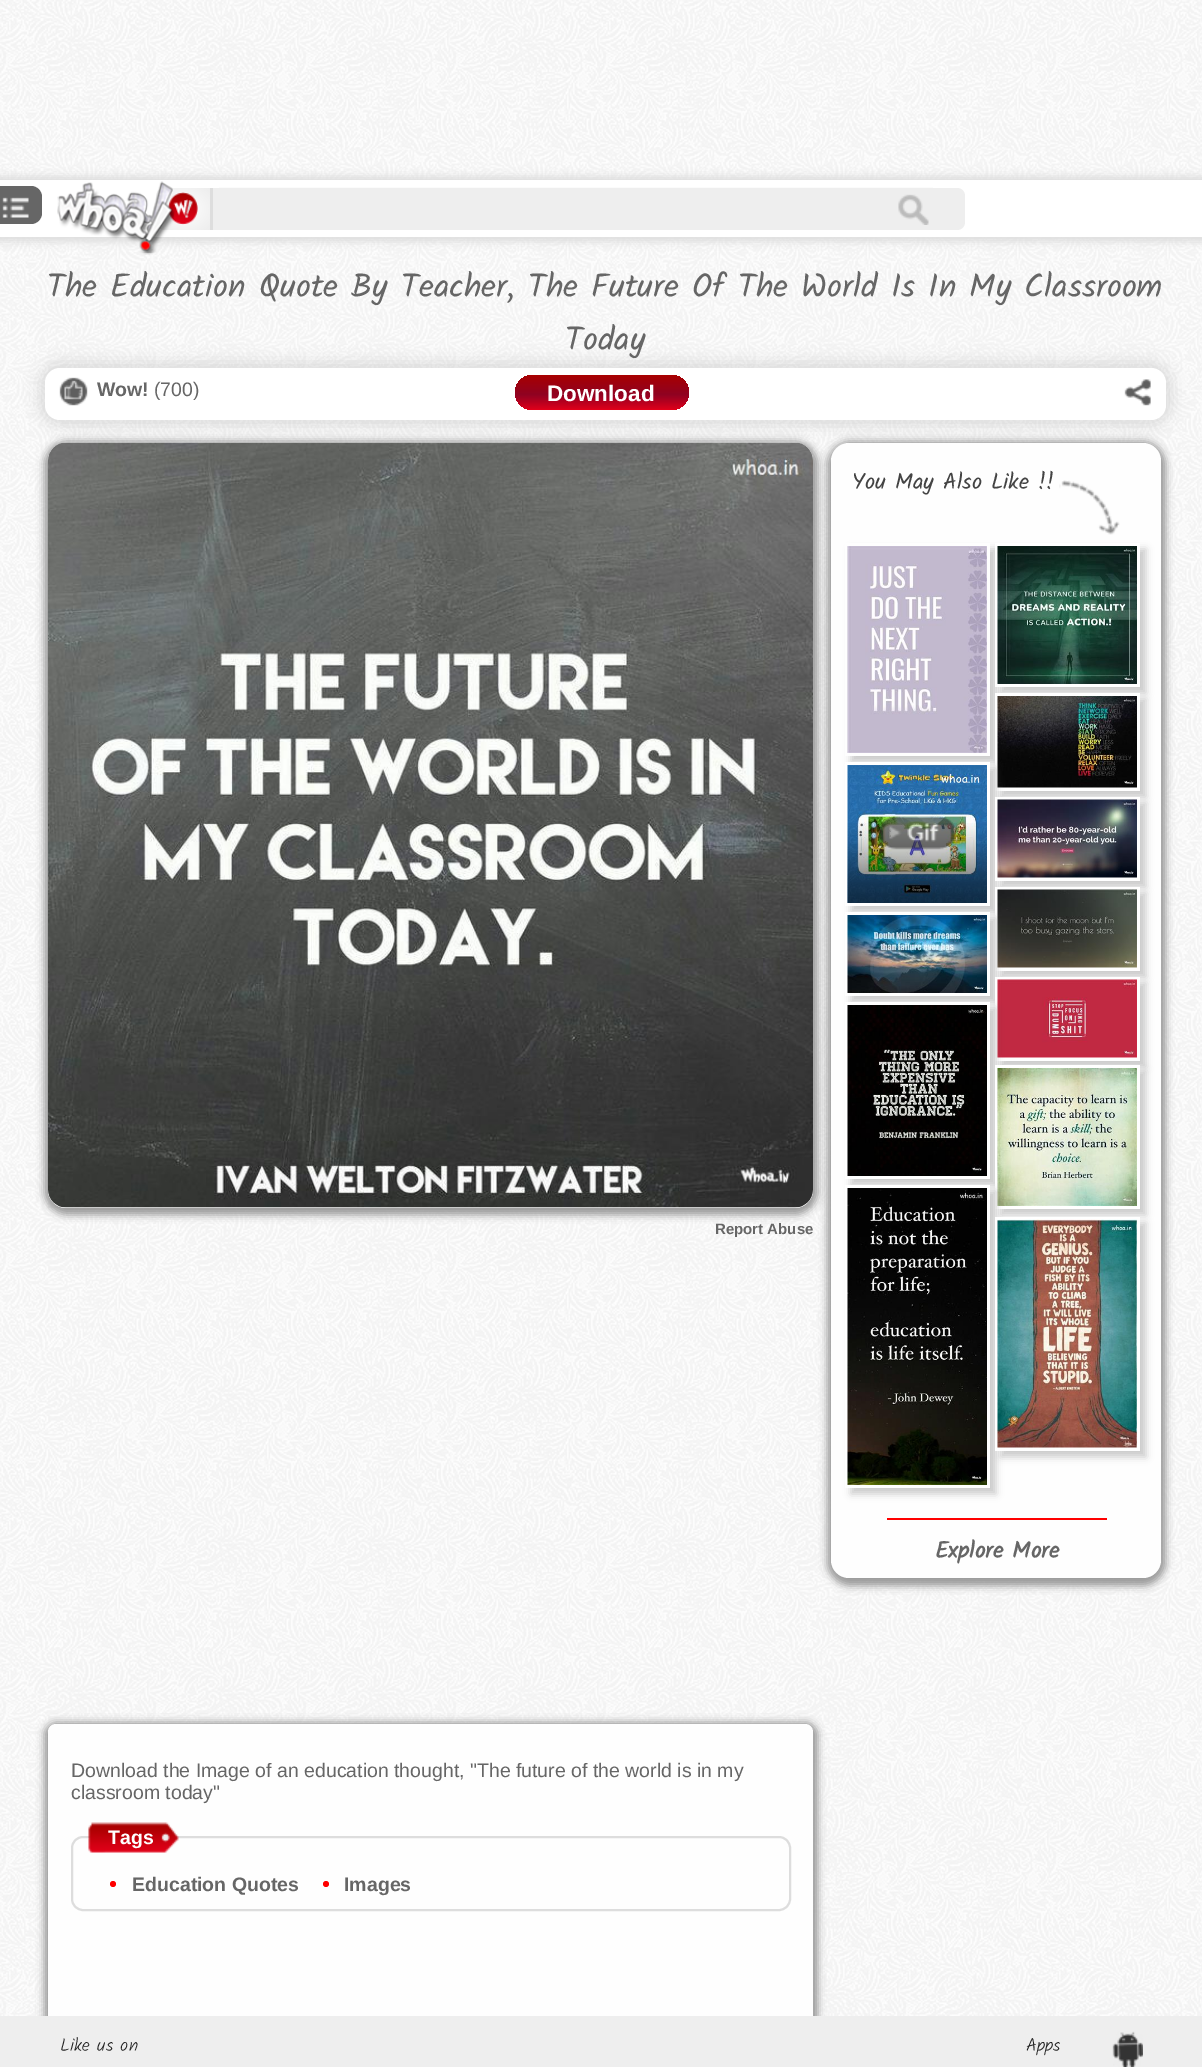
%!PS-Adobe-3.0
%%BoundingBox: 0 0 1202 2067
%%LanguageLevel: 3
%%Pages: 1
%%EndComments
%%BeginProlog
/setink { dup -16 bitshift 255 div exch dup -8 bitshift 255 and 255 div exch 255 and 255 div setrgbcolor } def
/usefont { [ exch dup neg 0 0 3 -1 roll 0 0 ] selectfont } def
/setalpha { dup .setfillconstantalpha .setstrokeconstantalpha } def
/disc { newpath 0 360 arc closepath } def
/rrect { 5 dict begin { /r /h /w /y /x } { exch def } forall
  x r add y moveto x w add y 2 copy h add r arct x w add y h add x 1 index r arct
  x y h add x y r arct x y 2 copy exch w add exch r arct closepath end } def
/softshadow { 12 dict begin { /a /b /q /h /w /y /x } { exch def } forall gsave /was 0 def
  9 -2 -9 { dup b mul 4 div /e exch def 1 sub .425 mul 2.718 exch exp 1 add a .99 .min exch div /now exch def
    1 1 now sub 1 was sub div sub setalpha /was now def
    w h .min e 2 mul add 0 gt { x e sub y e sub w e 2 mul add h e 2 mul add
      q e add b .6 mul add w h .min 2 div e add .min 0 .max rrect fill } if } for grestore end } def
/drawimage { 5 dict begin { /h /w /y /x /name } { exch def } forall
  gsave x y translate w h scale
  w h 8 [w 0 0 h 0 0] name (r) file false 3 colorimage grestore end } def
%%EndProlog
%%BeginSetup
<< /PageSize [1202 2067] /PageUsesTransparency true >> setpagedevice
%%EndSetup
%%Page: 1 1
0 .pushpdf14devicefilter
0 2067 translate 1 -1 scale
4 setmiterlimit
16#FFFFFF setink
0 0 1202 2067 rectfill
(img1.raw) 0 0 1202 2016 drawimage
16#DDDDDD setink
-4 176 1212 66 0 4 1 softshadow
16#FFFFFF setink
0 180 1202 57 rectfill
16#666666 setink
-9 186 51 38 11 rrect fill
(img2.raw) 2 197 27 21 drawimage
gsave 164 188 moveto 210 188 lineto 210 230 lineto 164 230 lineto 159.5 230 156 226.5 156 222 curveto 156 196 lineto 156 191.5 159.5 188 164 188 curveto closepath clip newpath 183 209 translate 38 30 scale
<< /ShadingType 3 /ColorSpace /DeviceRGB /Coords [0 0 0 0 0 1] /Extend [true true] /Function << /FunctionType 3 /Domain [0 1] /Functions [<< /FunctionType 2 /Domain [0 1] /C0 [1 1 1] /C1 [0.965 0.965 0.965] /N 1 >> << /FunctionType 2 /Domain [0 1] /C0 [0.965 0.965 0.965] /C1 [0.929 0.929 0.929] /N 1 >>] /Bounds [0.47] /Encode [0 1 0 1] >> >> shfill grestore
(img4.raw) 168 192 30 33 drawimage
(img3.raw) 57 181 118 74 drawimage
16#DDDDDD setink
210 188 3 42 rectfill
16#EEEEEE setink
213 188 moveto 957 188 lineto 961.5 188 965 191.5 965 196 curveto 965 222 lineto 965 226.5 961.5 230 957 230 curveto 213 230 lineto closepath fill
(img5.raw) 219 187 714 38 drawimage
/Kalam-Regular 33 usefont
16#666666 setink
47 297 moveto (The Education Quote By Teacher, The Future Of The World Is In My Classroom) show
16#C8C8C8 setink
39 362 1133 64 21 8 0.6 softshadow
16#666666 setink
565 350 moveto (Today) show
16#FFFFFF setink
45 368 1121 52 15 rrect fill
(img6.raw) 59 377 29 29 drawimage
/LiberationSans-Bold 19.5 usefont
16#666666 setink
97 396 moveto (Wow!) show
/LiberationSans-Regular 19.5 usefont
154 396 moveto (\(700\)) show
gsave 515 375 174 35 17.5 rrect clip newpath
<< /ShadingType 2 /ColorSpace /DeviceRGB /Coords [602 375 602 410] /Extend [true true] /Function << /FunctionType 3 /Domain [0 1] /Functions [<< /FunctionType 2 /Domain [0 1] /C0 [0.663 0 0] /C1 [0.643 0 0.027] /N 1 >> << /FunctionType 2 /Domain [0 1] /C0 [0.643 0 0.027] /C1 [0.561 0.008 0.133] /N 1 >> << /FunctionType 2 /Domain [0 1] /C0 [0.561 0.008 0.133] /C1 [0.882 0 0.102] /N 1 >>] /Bounds [0.11 0.56] /Encode [0 1 0 1 0 1] >> >> shfill grestore
/LiberationSans-Bold 22.5 usefont
16#FFFFFF setink
547 401 moveto (Download) show
(img7.raw) 1124 379 27 27 drawimage
16#999999 setink
44 441 774 774 23 4 1 softshadow
16#FEFEFE setink
48 443 765 765 18 rrect fill
(img8.raw) 48 442 765 766 drawimage
/LiberationSans-Bold 15 usefont
16#666666 setink
715 1234 moveto (Report Abuse) show
16#999999 setink
44 1722 774 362 12 4 1 softshadow
16#FEFEFE setink
48 1724 765 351 8 rrect fill
/LiberationSans-Regular 19.5 usefont
16#666666 setink
71 1777 moveto (Download the Image of an education thought, "The future of the world is in my) show
71 1799 moveto (classroom today") show
16#DDDDDD setink
2 setlinewidth
72 1837 718 73 11 rrect stroke
(img9.raw) 88 1822 91 31 drawimage
/LiberationSans-Bold 19.5 usefont
16#FFFFFF setink
108 1844 moveto (Tags) show
16#FF0000 setink
113 1884 3 disc fill
16#666666 setink
132 1891 moveto (Education Quotes) show
16#FF0000 setink
326 1884 3 disc fill
16#666666 setink
344 1891 moveto (Images) show
16#999999 setink
827 441 339 1145 23 4 1 softshadow
16#FEFEFE setink
831 443 330 1135 18 rrect fill
(img10.raw) 1059 480 61 55 drawimage
/Kalam-Regular 22.5 usefont
16#444444 setink
852 489 moveto (You May Also Like !!) show
gsave
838 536 moveto 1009 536 lineto 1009 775 lineto 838 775 lineto closepath 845 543 moveto 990 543 lineto 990 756 lineto 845 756 lineto closepath eoclip newpath
16#505050 setink
851 549 145 213 0 4 0.3 softshadow
grestore
(img11.raw) 847 546 140 207 drawimage
16#505050 setink
1001 549 145 144 0 4 0.3 softshadow
16#FFFFFF setink
995 543 145 144 rectfill
(img12.raw) 997 546 140 138 drawimage
16#505050 setink
1001 699 145 98 0 4 0.3 softshadow
16#FFFFFF setink
995 693 145 98 rectfill
(img16.raw) 997 696 140 92 drawimage
16#505050 setink
851 768 145 144 0 4 0.3 softshadow
16#FFFFFF setink
845 762 145 144 rectfill
(img13.raw) 847 765 140 138 drawimage
(img14.raw) 878 816 78 34 drawimage
(img15.raw) 847 823 140 80 drawimage
16#505050 setink
1001 803 145 84 0 4 0.3 softshadow
16#FFFFFF setink
995 797 145 84 rectfill
(img17.raw) 997 799 140 79 drawimage
16#505050 setink
1001 893 145 84 0 4 0.3 softshadow
16#FFFFFF setink
995 887 145 84 rectfill
(img19.raw) 997 889 140 79 drawimage
16#505050 setink
851 918 145 84 0 4 0.3 softshadow
16#FFFFFF setink
845 912 145 84 rectfill
(img18.raw) 847 915 140 78 drawimage
16#505050 setink
1001 983 145 84 0 4 0.3 softshadow
16#FFFFFF setink
995 977 145 84 rectfill
(img21.raw) 997 979 140 79 drawimage
16#505050 setink
851 1008 145 177 0 4 0.3 softshadow
16#FFFFFF setink
845 1002 145 177 rectfill
(img20.raw) 847 1005 140 171 drawimage
16#505050 setink
1001 1071 145 144 0 4 0.3 softshadow
16#FFFFFF setink
995 1065 145 144 rectfill
(img22.raw) 997 1068 140 138 drawimage
16#505050 setink
851 1191 145 303 0 4 0.3 softshadow
16#FFFFFF setink
845 1185 145 303 rectfill
(img23.raw) 847 1188 140 297 drawimage
16#505050 setink
1001 1223 145 234 0 4 0.3 softshadow
16#FFFFFF setink
995 1217 145 234 rectfill
(img24.raw) 997 1219 140 229 drawimage
16#FF0000 setink
887 1518 220 2 rectfill
/Kalam-Bold 23 usefont
16#666666 setink
935 1558 moveto (Explore More) show
16#EEEEEE setink
0 2016 1202 51 rectfill
/Kalam-Light 18 usefont
16#222222 setink
60 2051 moveto (Like us on) show
1026 2051 moveto (Apps) show
(img25.raw) 1112 2031 31 36 drawimage
.poppdf14devicefilter showpage
%%EOF
